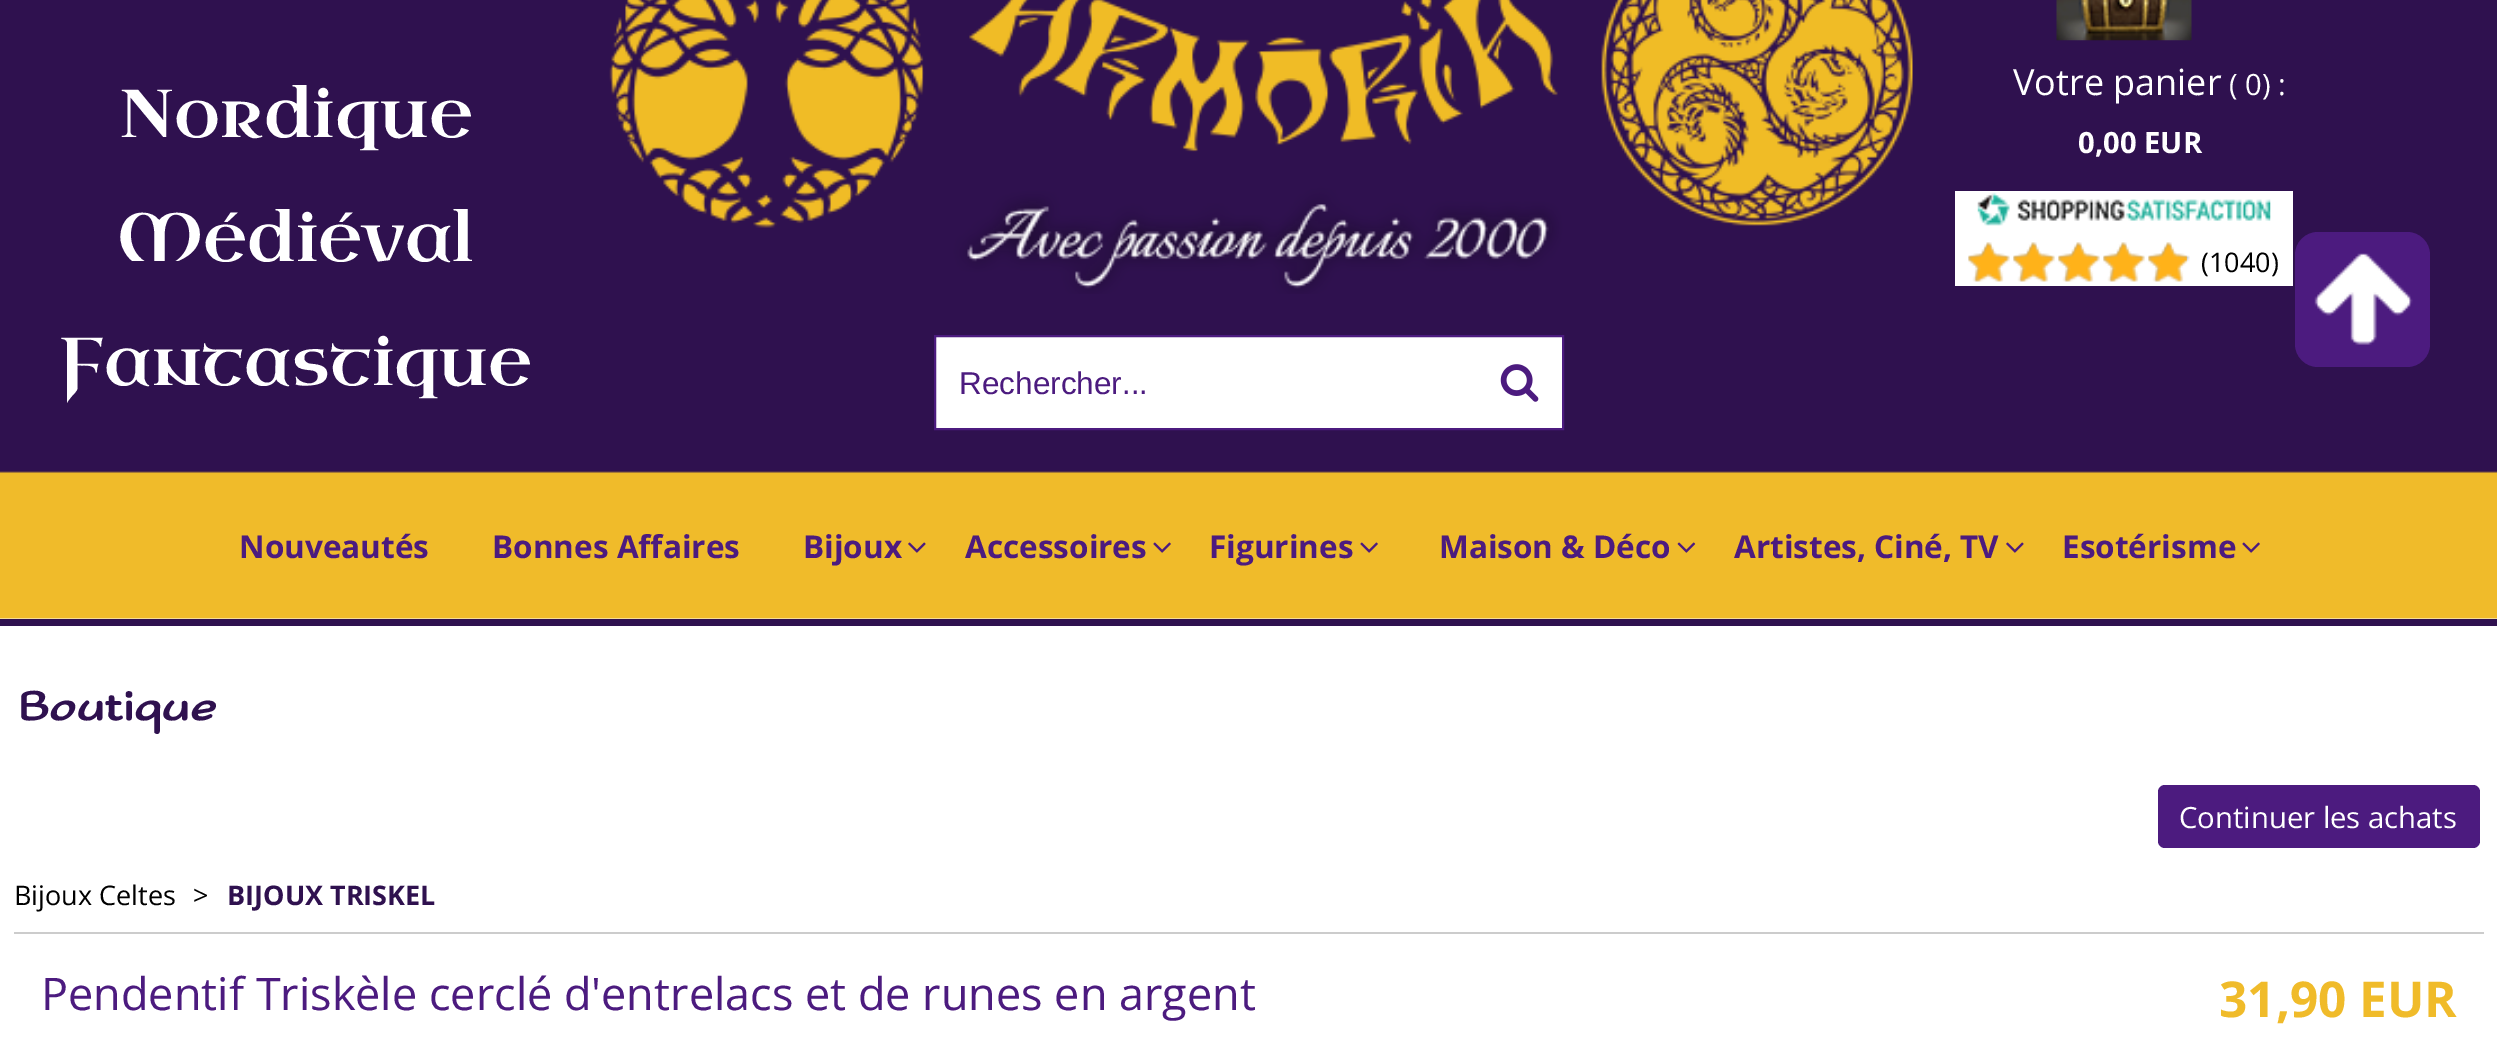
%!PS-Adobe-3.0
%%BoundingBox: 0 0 2497 1041
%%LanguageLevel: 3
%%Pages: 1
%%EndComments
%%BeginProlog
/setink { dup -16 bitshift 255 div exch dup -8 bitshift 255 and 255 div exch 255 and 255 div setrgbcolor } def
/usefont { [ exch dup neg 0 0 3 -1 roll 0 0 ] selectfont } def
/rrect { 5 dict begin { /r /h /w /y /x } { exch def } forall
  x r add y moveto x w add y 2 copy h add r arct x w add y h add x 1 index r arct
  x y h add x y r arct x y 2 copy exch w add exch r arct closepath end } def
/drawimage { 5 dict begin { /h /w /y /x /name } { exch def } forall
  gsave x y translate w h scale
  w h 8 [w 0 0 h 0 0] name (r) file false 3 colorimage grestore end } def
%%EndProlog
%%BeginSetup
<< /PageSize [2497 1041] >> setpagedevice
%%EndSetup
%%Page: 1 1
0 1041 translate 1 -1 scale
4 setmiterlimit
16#FFFFFF setink
0 0 2497 1041 rectfill
(img1.raw) 0 0 2497 619 drawimage
/UncialAntiqua-Regular 67.5 usefont
[
    [(Nordique) 119 137]
    [(Médiéval) 117 261]
    [(Fantastique) 59 385]
] { aload pop moveto show } forall
(img2.raw) 609 0 1304 294 drawimage
(img3.raw) 2056 0 136 41 drawimage
/OpenSans-Regular 36 usefont
2013 95 moveto (Votre panier) show
/OpenSans-Regular 29.25 usefont
2229 95 moveto (\( 0\) :) show
/OpenSans-Bold 29.25 usefont
2078 153 moveto (0,00 EUR) show
1955 191 338 95 rectfill
(img4.raw) 1977 192 294 34 drawimage
(img5.raw) 1968 242 222 40 drawimage
(img6.raw) 1968 242 219 40 drawimage
/OpenSans-Regular 27 usefont
16#000000 setink
2201 272 moveto (\(1040\)) show
16#FFFFFF setink
935 336 moveto 1563 336 lineto 1563 429 lineto 935 429 lineto closepath gsave fill grestore
16#4C1B7F setink
2 setlinewidth
stroke
/LiberationSans-Regular 31.5 usefont
959 394 moveto (Rechercher...) show
(img7.raw) 1500 364 39 38 drawimage
/OpenSans-Bold 31.5 usefont
[
    [(Nouveautés) 239 558]
    [(Bonnes Affaires) 492 558]
    [(Bijoux) 803 558]
] { aload pop moveto show } forall
(img8.raw) 908 542 18 11 drawimage
965 558 moveto (Accessoires) show
(img9.raw) 1153 542 18 11 drawimage
1209 558 moveto (Figurines) show
(img9.raw) 1360 542 18 11 drawimage
1439 558 moveto (Maison & Déco) show
(img10.raw) 1677 542 19 11 drawimage
1734 558 moveto (Artistes, Ciné, TV) show
(img8.raw) 2006 542 18 11 drawimage
2062 558 moveto (Esotérisme) show
(img9.raw) 2242 542 18 11 drawimage
2295 232 135 135 23 rrect fill
(img11.raw) 2314 253 99 92 drawimage
16#2F114F setink
0 619 2497 7 rectfill
/SofadiOne-Bold 45 usefont
18 720 moveto (Boutique) show
16#4C1B7F setink
2158 785 322 63 7 rrect fill
/OpenSans-Regular 29.25 usefont
16#FFFFFF setink
2179 828 moveto (Continuer les achats) show
/OpenSans-Regular 27 usefont
16#000000 setink
14 905 moveto (Bijoux Celtes) show
193 905 moveto (>) show
/OpenSans-Bold 27 usefont
16#2F114F setink
227 905 moveto (BIJOUX TRISKEL) show
16#CCCCCC setink
14 932 2470 2 rectfill
/OpenSans-Regular 45 usefont
16#4C1B7F setink
41 1010 moveto (Pendentif Triskèle cerclé d'entrelacs et de runes en argent) show
/OpenSans-Bold 49.5 usefont
16#F0BB2A setink
2219 1017 moveto (31,90 EUR) show
showpage
%%EOF
